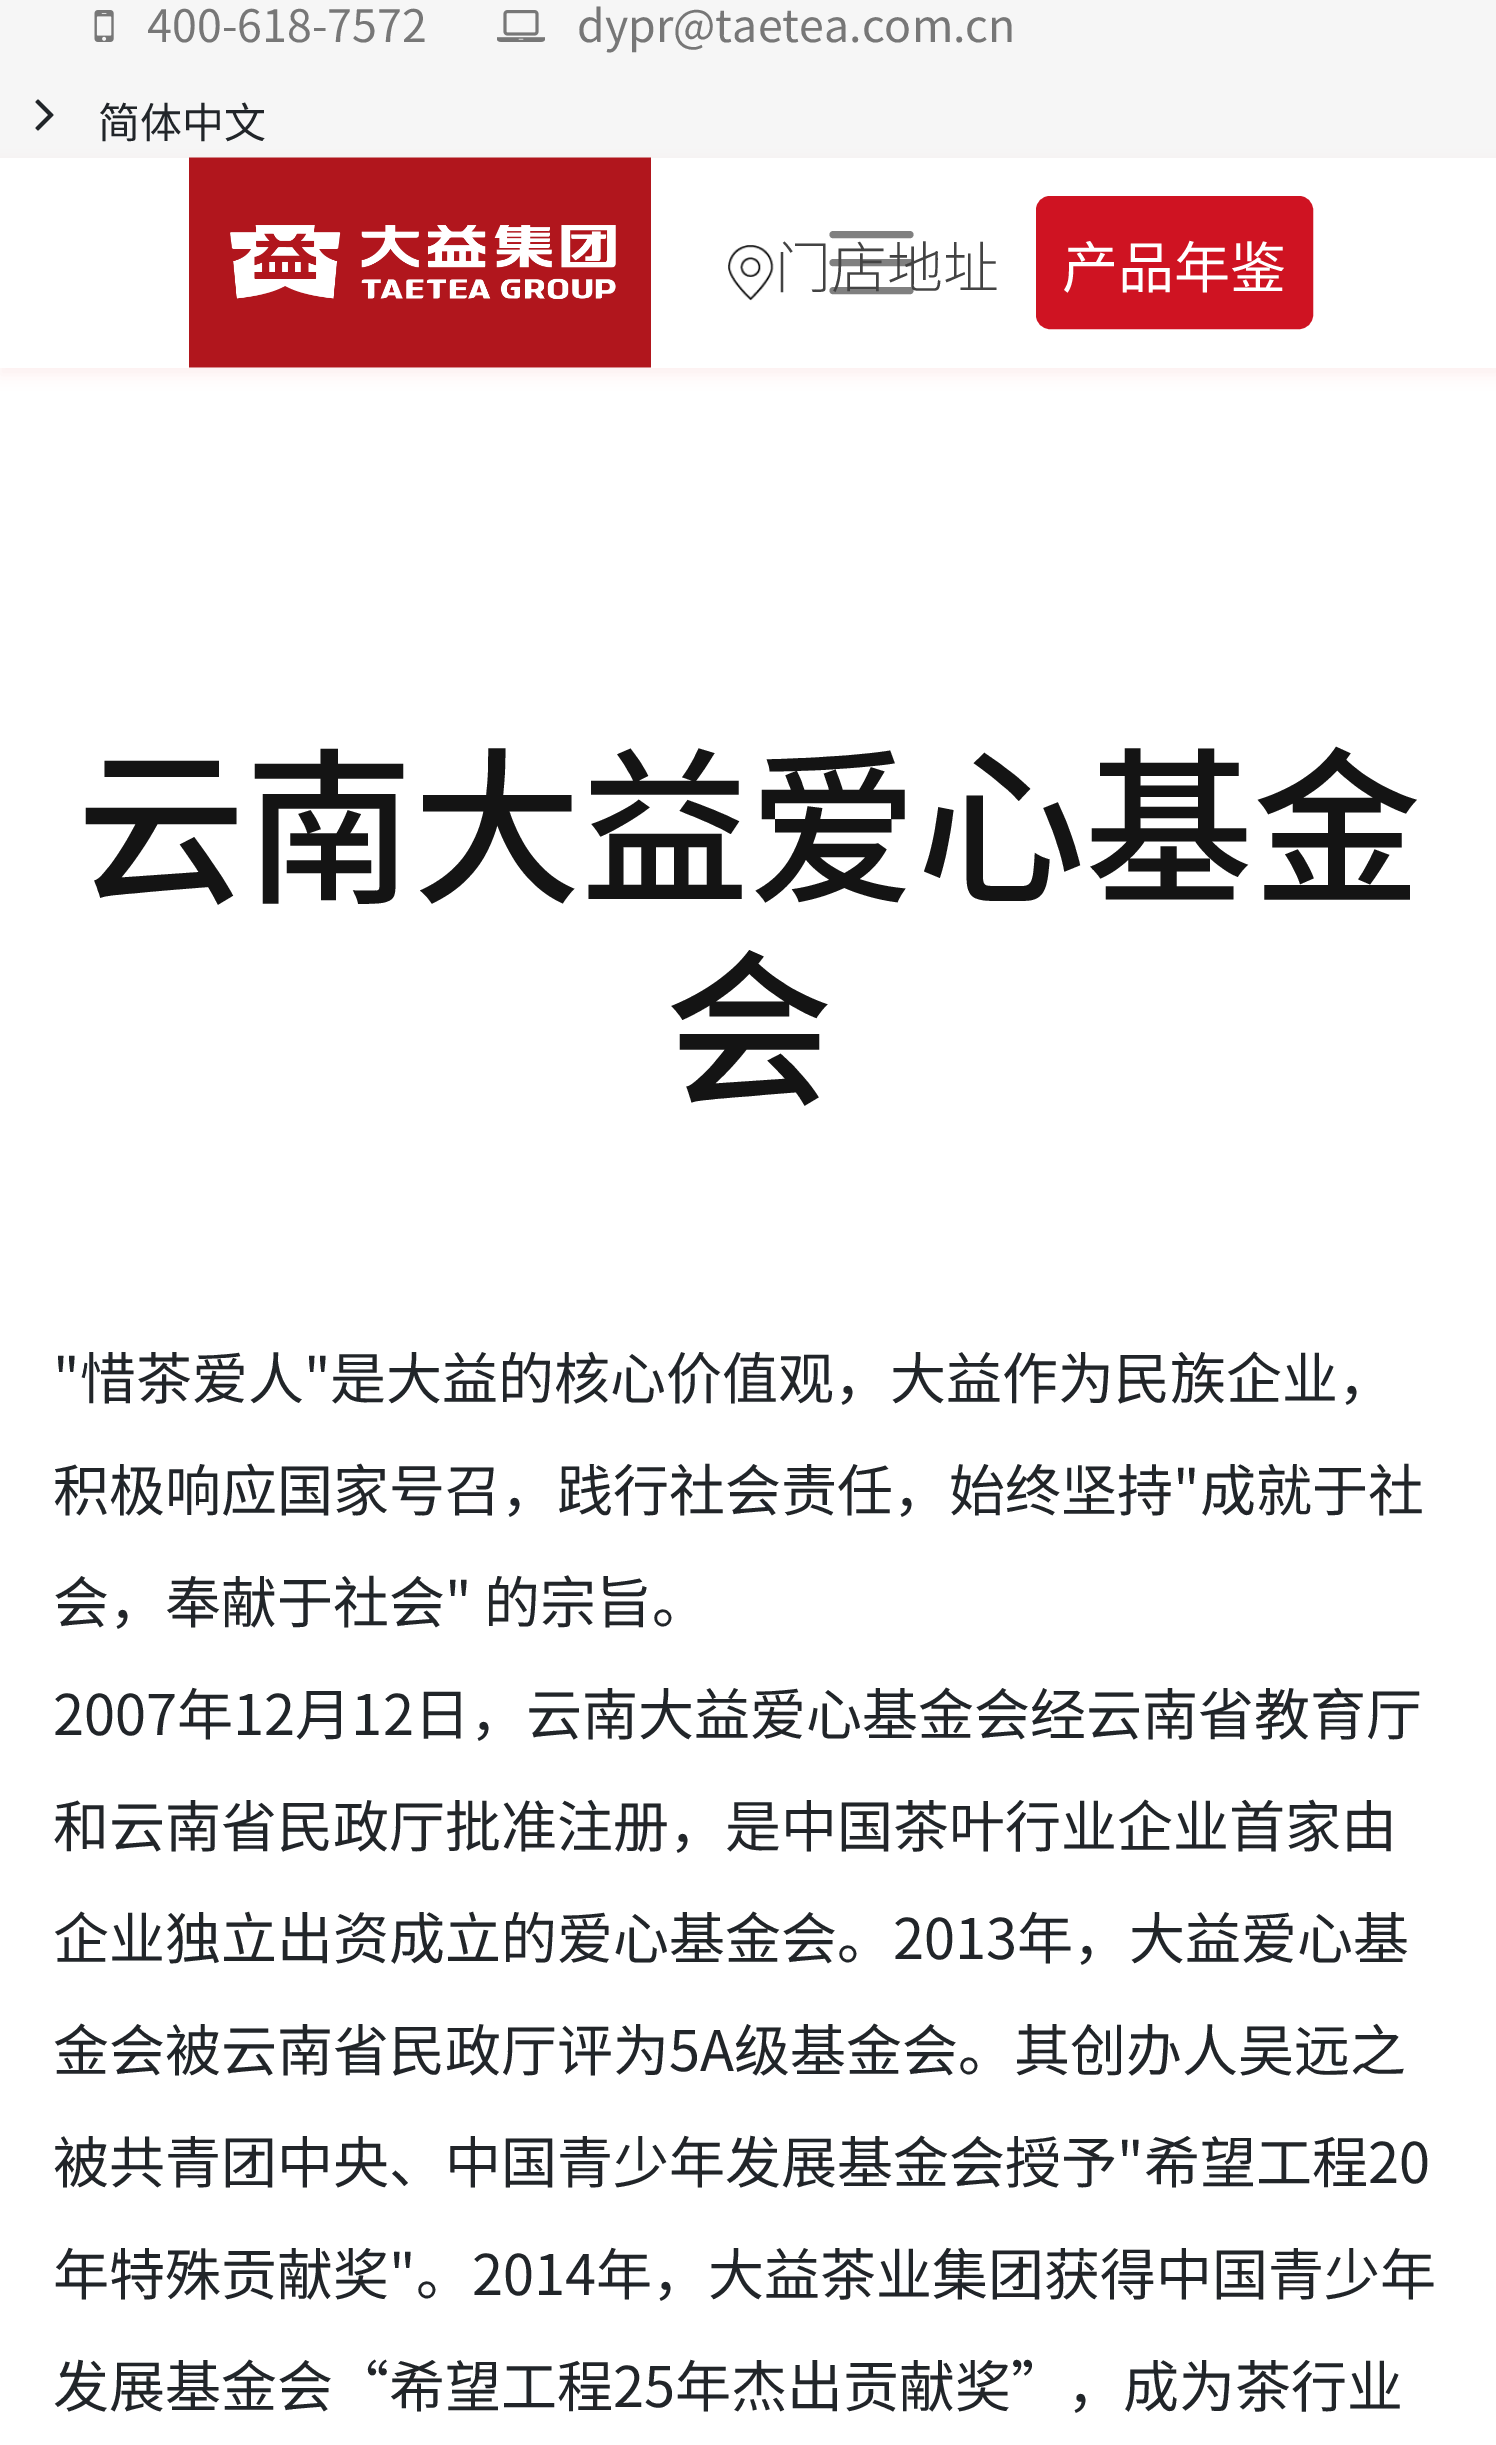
%!PS-Adobe-3.0
%%BoundingBox: 0 0 1496 2445
%%LanguageLevel: 3
%%Pages: 1
%%EndComments
%%BeginProlog
/setink { dup -16 bitshift 255 div exch dup -8 bitshift 255 and 255 div exch 255 and 255 div setrgbcolor } def
/usefont { [ exch dup neg 0 0 3 -1 roll 0 0 ] selectfont } def
/setalpha { dup .setfillconstantalpha .setstrokeconstantalpha } def
/rrect { 5 dict begin { /r /h /w /y /x } { exch def } forall
  x r add y moveto x w add y 2 copy h add r arct x w add y h add x 1 index r arct
  x y h add x y r arct x y 2 copy exch w add exch r arct closepath end } def
/softshadow { 12 dict begin { /a /b /q /h /w /y /x } { exch def } forall gsave /was 0 def
  9 -2 -9 { dup b mul 4 div /e exch def 1 sub .425 mul 2.718 exch exp 1 add a .99 .min exch div /now exch def
    1 1 now sub 1 was sub div sub setalpha /was now def
    w h .min e 2 mul add 0 gt { x e sub y e sub w e 2 mul add h e 2 mul add
      q e add b .6 mul add w h .min 2 div e add .min 0 .max rrect fill } if } for grestore end } def
/drawimage { 5 dict begin { /h /w /y /x /name } { exch def } forall
  gsave x y translate w h scale
  w h 8 [w 0 0 h 0 0] name (r) file false 3 colorimage grestore end } def
%%EndProlog
%%BeginSetup
<< /PageSize [1496 2445] /PageUsesTransparency true >> setpagedevice
%%EndSetup
%%Page: 1 1
0 .pushpdf14devicefilter
0 2445 translate 1 -1 scale
4 setmiterlimit
16#FFFFFF setink
0 0 1496 2445 rectfill
16#F6F6F6 setink
0 0 1496 158 rectfill
(img1.raw) 94 10 20 32 drawimage
/NotoSansSC-Regular 44.75 usefont
16#777777 setink
147 42 moveto (400-618-7572) show
(img2.raw) 497 10 48 32 drawimage
577 42 moveto (dypr@taetea.com.cn) show
(img3.raw) 35 99 19 32 drawimage
/NotoSansSC-Regular 42 usefont
16#212529 setink
98 138 moveto (简体中文) show
16#DA3E3E setink
0 165 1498 210 0 7 0.08 softshadow
16#FFFFFF setink
0 158 1496 210 rectfill
(img4.raw) 189 157 462 211 drawimage
16#808080 setink
7 setlinewidth
1 setlinecap
833 234.5 moveto 910 234.5 lineto 833 262.5 moveto 910 262.5 lineto 833 290.5 moveto 910 290.5 lineto stroke
(img5.raw) 728 245 46 56 drawimage
/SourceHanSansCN-Light 56 usefont
16#434343 setink
775 288 moveto (门店地址) show
16#CF1322 setink
1038 198 273 129 12 rrect gsave fill grestore
4 setlinewidth
0 setlinecap
stroke
/NotoSansSC-Regular 56 usefont
16#FFFFFF setink
1062 288 moveto (产品年鉴) show
/NotoSansSC-Medium 168 usefont
16#141414 setink
77 890 moveto (云南大益爱心基金) show
665 1092 moveto (会) show
/NotoSansSC-Regular 56 usefont
16#212529 setink
[
    [("惜茶爱人"是大益的核心价值观，大益作为民族企业，) 53 1399]
    [(积极响应国家号召，践行社会责任，始终坚持"成就于社) 53 1511]
    [(会，奉献于社会" 的宗旨。) 53 1623]
    [(2007年12月12日，云南大益爱心基金会经云南省教育厅) 53 1735]
    [(和云南省民政厅批准注册，是中国茶叶行业企业首家由) 53 1847]
    [(企业独立出资成立的爱心基金会。2013年，大益爱心基) 53 1959]
    [(金会被云南省民政厅评为5A级基金会。其创办人吴远之) 53 2071]
    [(被共青团中央、中国青少年发展基金会授予"希望工程20) 53 2183]
    [(年特殊贡献奖"。2014年，大益茶业集团获得中国青少年) 53 2295]
    [(发展基金会“希望工程25年杰出贡献奖”，成为茶行业) 53 2407]
] { aload pop moveto show } forall
.poppdf14devicefilter showpage
%%EOF
